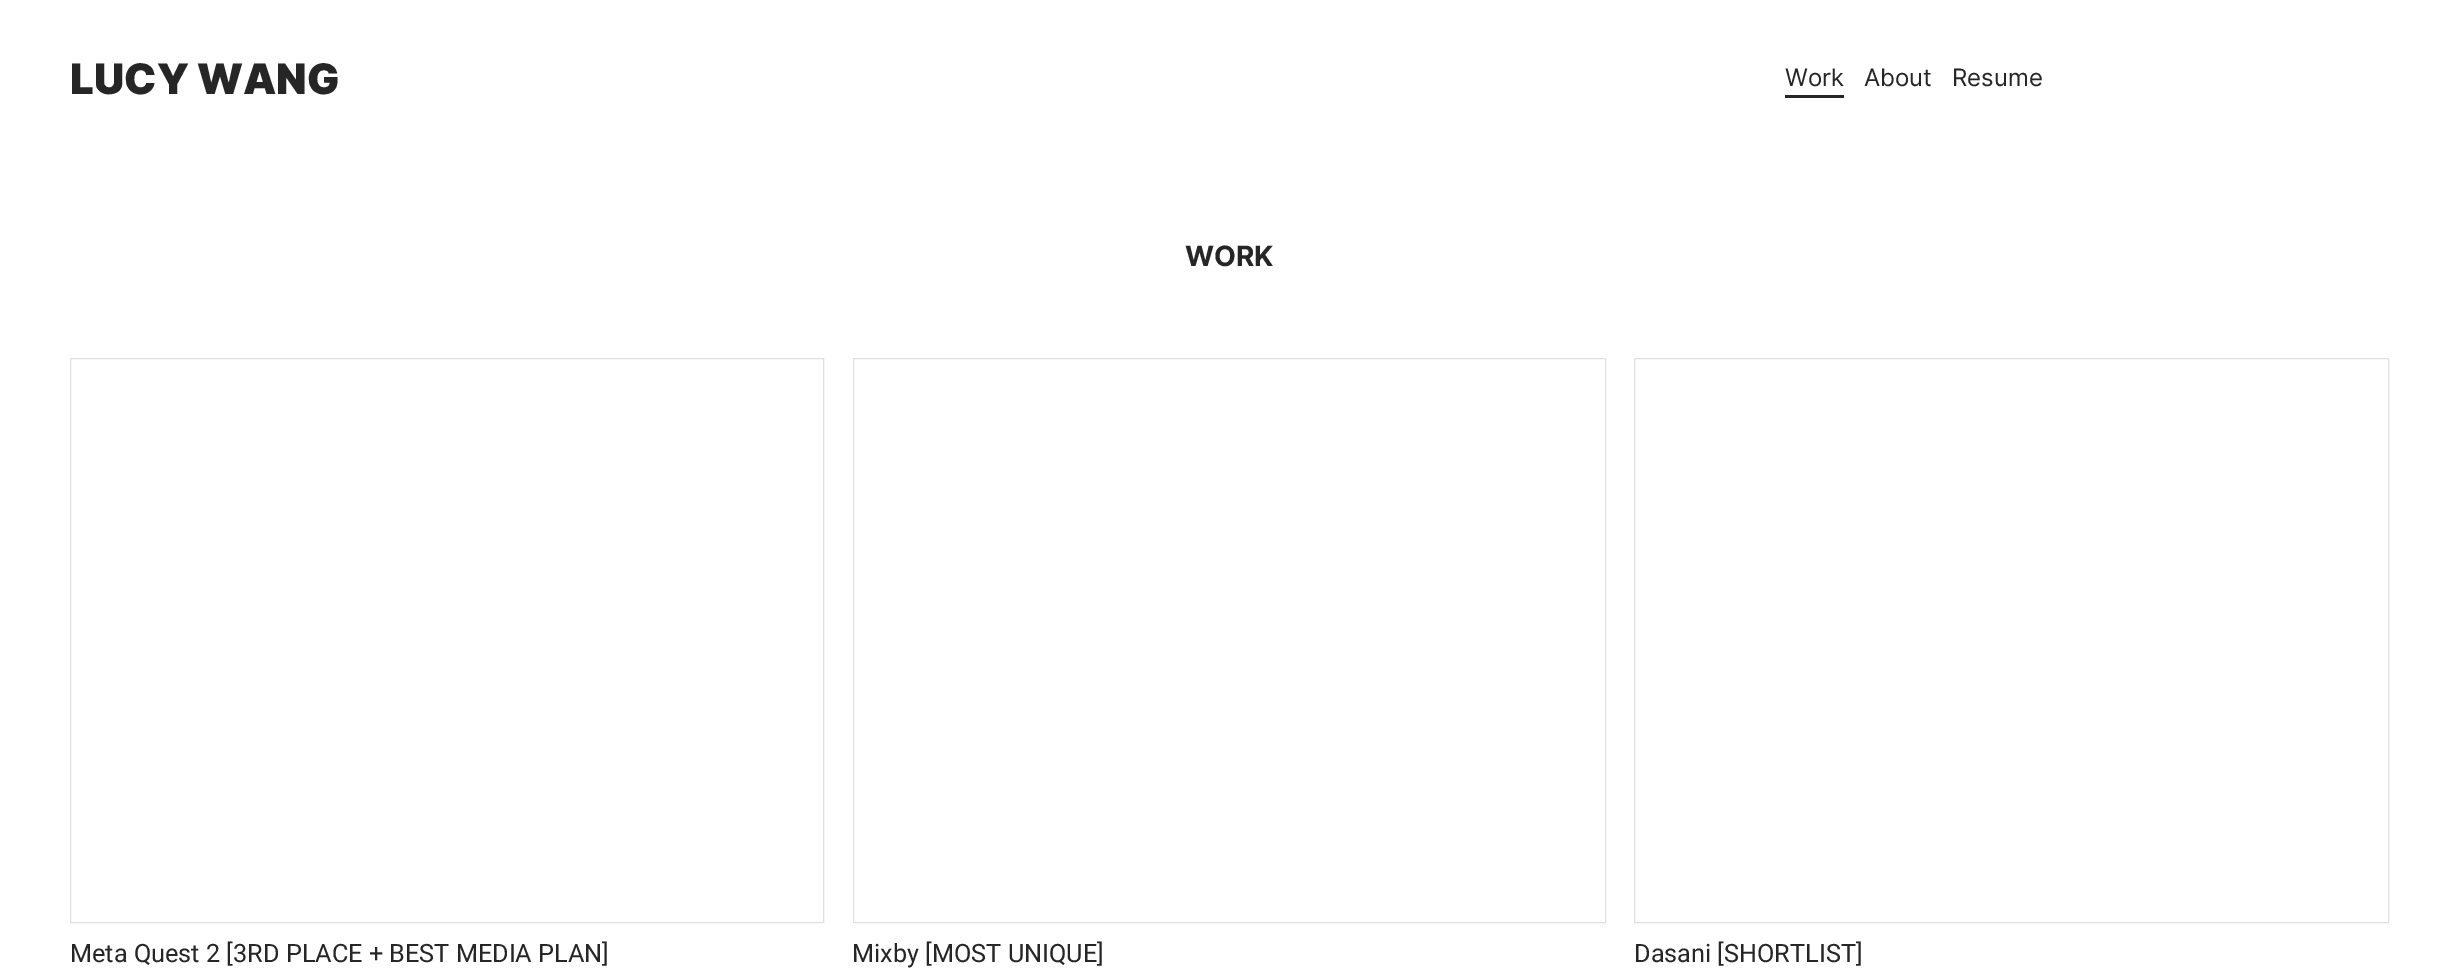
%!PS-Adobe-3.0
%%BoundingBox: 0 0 2458 973
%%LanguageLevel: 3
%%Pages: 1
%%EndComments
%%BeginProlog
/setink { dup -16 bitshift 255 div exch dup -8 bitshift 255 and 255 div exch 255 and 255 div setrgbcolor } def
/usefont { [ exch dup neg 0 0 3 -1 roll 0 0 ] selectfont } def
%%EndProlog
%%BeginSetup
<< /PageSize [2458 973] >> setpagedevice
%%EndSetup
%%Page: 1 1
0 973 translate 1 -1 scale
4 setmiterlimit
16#FFFFFF setink
0 0 2458 973 rectfill
/Inter-Black 42 usefont
16#262626 setink
70 94 moveto (LUCY WANG) show
/Inter-Regular 24 usefont
1785 86 moveto (Work) show
1785 95 59 3 rectfill
1864 86 moveto (About) show
1952 86 moveto (Resume) show
/Inter-Bold 28 usefont
1185 266 moveto (WORK) show
16#E0E0E0 setink
70.5 358.5 753 564 rectstroke
/Roboto-Regular 25.25 usefont
16#262626 setink
70 962 moveto (Meta Quest 2 [3RD PLACE + BEST MEDIA PLAN]) show
16#E0E0E0 setink
853.5 358.5 752 564 rectstroke
16#262626 setink
852 962 moveto (Mixby [MOST UNIQUE]) show
16#E0E0E0 setink
1634.5 358.5 754 564 rectstroke
16#262626 setink
1634 962 moveto (Dasani [SHORTLIST]) show
showpage
%%EOF
